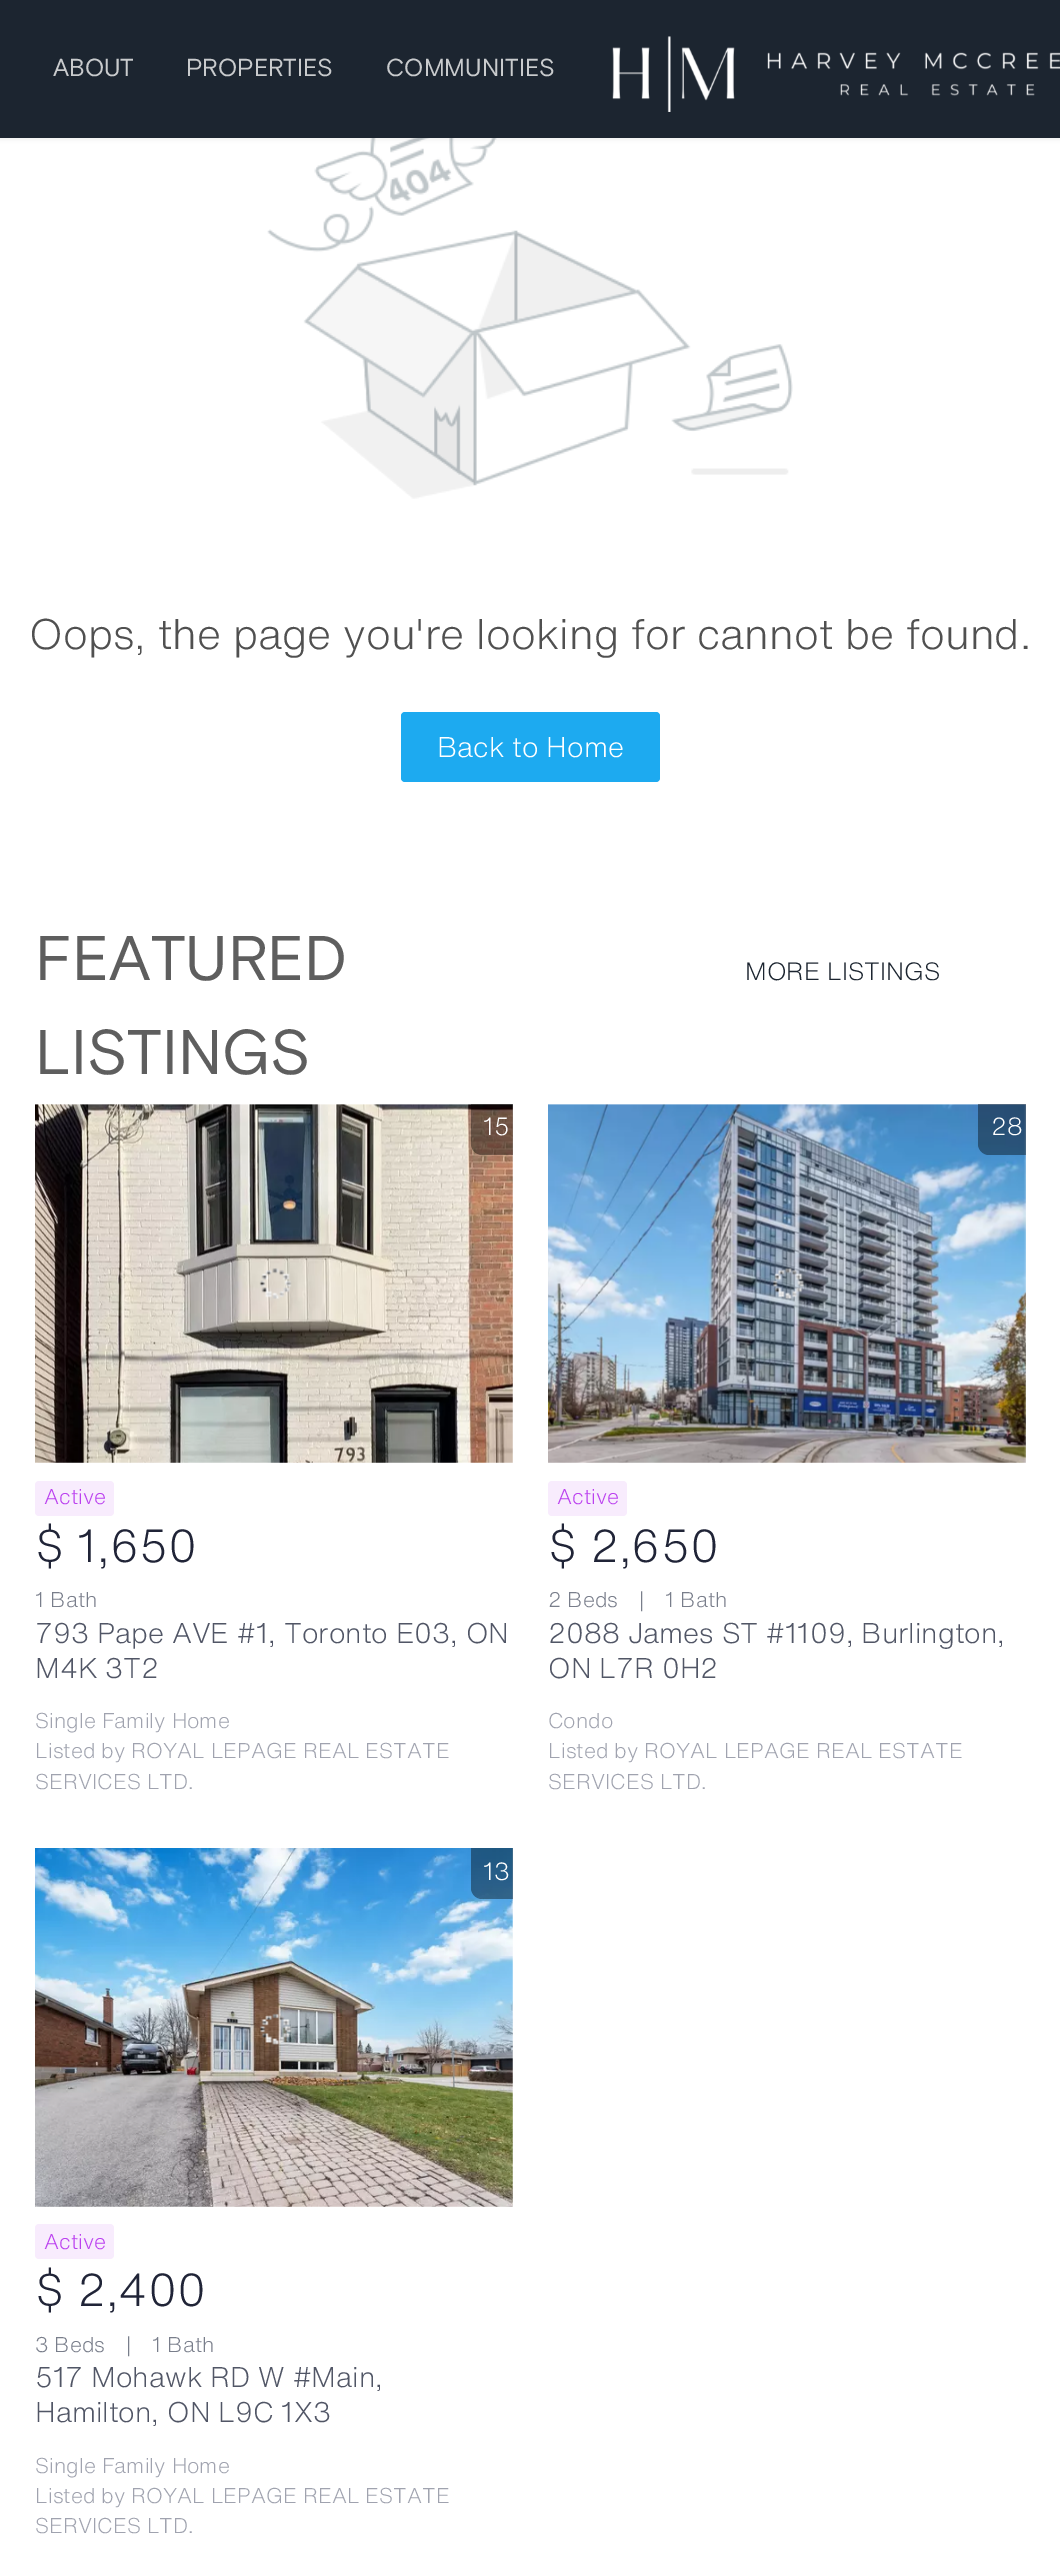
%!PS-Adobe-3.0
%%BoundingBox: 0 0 1060 2549
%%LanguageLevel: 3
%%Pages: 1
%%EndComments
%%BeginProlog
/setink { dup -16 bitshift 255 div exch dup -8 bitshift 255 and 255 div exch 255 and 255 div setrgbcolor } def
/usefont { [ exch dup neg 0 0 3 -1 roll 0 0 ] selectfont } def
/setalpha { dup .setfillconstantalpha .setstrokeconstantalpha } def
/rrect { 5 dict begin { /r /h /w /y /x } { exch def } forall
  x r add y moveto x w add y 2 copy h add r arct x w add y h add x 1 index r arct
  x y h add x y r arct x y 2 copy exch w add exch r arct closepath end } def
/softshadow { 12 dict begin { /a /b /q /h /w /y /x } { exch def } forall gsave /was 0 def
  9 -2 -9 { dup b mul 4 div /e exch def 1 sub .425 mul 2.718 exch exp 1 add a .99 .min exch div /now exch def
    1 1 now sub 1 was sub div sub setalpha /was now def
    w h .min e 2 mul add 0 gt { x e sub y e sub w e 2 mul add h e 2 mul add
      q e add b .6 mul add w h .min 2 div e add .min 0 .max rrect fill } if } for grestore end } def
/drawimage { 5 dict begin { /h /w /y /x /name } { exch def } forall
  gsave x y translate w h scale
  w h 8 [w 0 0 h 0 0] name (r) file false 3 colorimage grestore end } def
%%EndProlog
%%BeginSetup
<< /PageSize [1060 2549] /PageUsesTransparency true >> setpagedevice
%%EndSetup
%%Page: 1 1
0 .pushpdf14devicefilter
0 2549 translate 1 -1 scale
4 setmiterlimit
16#FFFFFF setink
0 0 1060 2549 rectfill
(img2.raw) 267 138 526 361 drawimage
16#000000 setink
-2 -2 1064 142 0 2 0.05 softshadow
16#1C2530 setink
0 0 1060 138 rectfill
/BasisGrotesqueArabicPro-Regular 24.5 usefont
16#C9CBCD setink
[
    [(ABOUT) 53 76]
    [(PROPERTIES) 186 76]
    [(COMMUNITIES) 386 76]
] { aload pop moveto show } forall
(img1.raw) 612 36 448 76 drawimage
/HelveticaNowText-Light 42 usefont
16#505050 setink
29 649 moveto (Oops, the page you're looking for cannot be found.) show
16#1DAAF0 setink
401 712 259 70 4 rrect fill
/HelveticaNowText-Light 28 usefont
16#FFFFFF setink
437 757 moveto (Back to Home) show
/BasisGrotesqueArabicPro-Regular 63 usefont
16#5E5E5E setink
35 980 moveto (FEATURED) show
35 1074 moveto (LISTINGS) show
/HelveticaNowText-Light 24.5 usefont
16#1C2530 setink
745 980 moveto (MORE LISTINGS) show
(img3.raw) 35 1104 478 359 drawimage
(img4.raw) 259 1268 33 31 drawimage
0.4 setalpha
16#000000 setink
471 1104 moveto 513 1104 lineto 513 1155 lineto 482 1155 lineto 476 1155 471 1150 471 1144 curveto closepath fill
1 setalpha
16#FFFFFF setink
483 1135 moveto (15) show
16#F8ECFD setink
35 1481 79 35 4 rrect fill
/HelveticaNowText-Light 21 usefont
16#BB40EF setink
44 1504 moveto (Active) show
/HelveticaNowText-Light 45.5 usefont
16#202437 setink
35 1562 moveto ($ 1,650) show
/HelveticaNowText-Light 21 usefont
16#797E8B setink
35 1607 moveto (1 Bath) show
/HelveticaNowText-Light 28 usefont
16#515666 setink
35 1643 moveto (793 Pape AVE #1, Toronto E03, ON) show
35 1678 moveto (M4K 3T2) show
/HelveticaNowText-Light 21 usefont
16#A0A3AF setink
[
    [(Single Family Home) 35 1728]
    [(Listed by ROYAL LEPAGE REAL ESTATE) 35 1758]
    [(SERVICES LTD.) 35 1789]
] { aload pop moveto show } forall
(img5.raw) 548 1104 478 359 drawimage
(img6.raw) 772 1268 33 32 drawimage
0.4 setalpha
16#000000 setink
978 1104 moveto 1026 1104 lineto 1026 1155 lineto 989 1155 lineto 983 1155 978 1150 978 1144 curveto closepath fill
/HelveticaNowText-Light 24.5 usefont
1 setalpha
16#FFFFFF setink
991 1135 moveto (28) show
16#F8ECFD setink
548 1481 79 35 4 rrect fill
/HelveticaNowText-Light 21 usefont
16#BB40EF setink
557 1504 moveto (Active) show
/HelveticaNowText-Light 45.5 usefont
16#202437 setink
548 1562 moveto ($ 2,650) show
/HelveticaNowText-Light 21 usefont
16#797E8B setink
[
    [(2 Beds) 548 1607]
    [(|) 639 1607]
    [(1 Bath) 665 1607]
] { aload pop moveto show } forall
/HelveticaNowText-Light 28 usefont
16#515666 setink
548 1643 moveto (2088 James ST #1109, Burlington,) show
548 1678 moveto (ON L7R 0H2) show
/HelveticaNowText-Light 21 usefont
16#A0A3AF setink
[
    [(Condo) 548 1728]
    [(Listed by ROYAL LEPAGE REAL ESTATE) 548 1758]
    [(SERVICES LTD.) 548 1789]
] { aload pop moveto show } forall
(img7.raw) 35 1848 478 359 drawimage
(img8.raw) 260 2013 32 32 drawimage
0.4 setalpha
16#000000 setink
471 1848 moveto 513 1848 lineto 513 1899 lineto 482 1899 lineto 476 1899 471 1894 471 1888 curveto closepath fill
/HelveticaNowText-Light 24.5 usefont
1 setalpha
16#FFFFFF setink
483 1880 moveto (13) show
16#F8ECFD setink
35 2224 79 35 4 rrect fill
/HelveticaNowText-Light 21 usefont
16#BB40EF setink
44 2249 moveto (Active) show
/HelveticaNowText-Light 45.5 usefont
16#202437 setink
35 2306 moveto ($ 2,400) show
/HelveticaNowText-Light 21 usefont
16#797E8B setink
[
    [(3 Beds) 35 2352]
    [(|) 126 2352]
    [(1 Bath) 152 2352]
] { aload pop moveto show } forall
/HelveticaNowText-Light 28 usefont
16#515666 setink
35 2387 moveto (517 Mohawk RD W #Main,) show
35 2422 moveto (Hamilton, ON L9C 1X3) show
/HelveticaNowText-Light 21 usefont
16#A0A3AF setink
[
    [(Single Family Home) 35 2473]
    [(Listed by ROYAL LEPAGE REAL ESTATE) 35 2503]
    [(SERVICES LTD.) 35 2533]
] { aload pop moveto show } forall
.poppdf14devicefilter showpage
%%EOF
